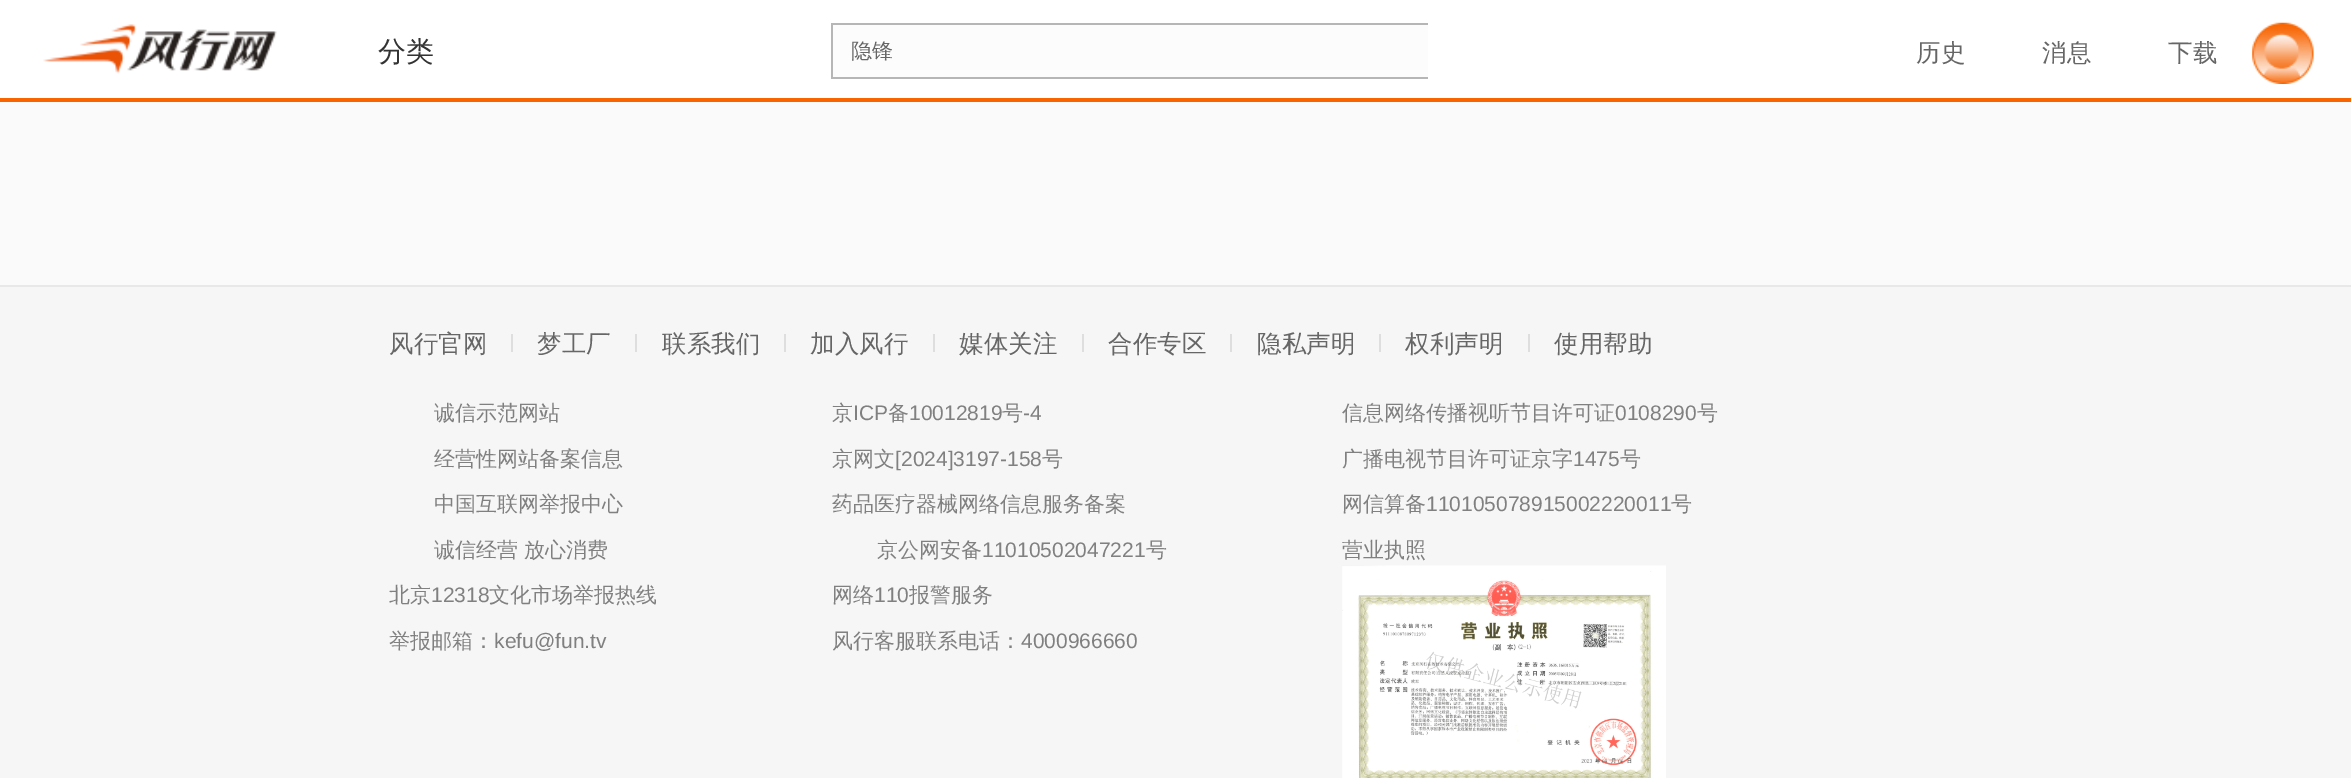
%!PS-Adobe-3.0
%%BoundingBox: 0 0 2351 778
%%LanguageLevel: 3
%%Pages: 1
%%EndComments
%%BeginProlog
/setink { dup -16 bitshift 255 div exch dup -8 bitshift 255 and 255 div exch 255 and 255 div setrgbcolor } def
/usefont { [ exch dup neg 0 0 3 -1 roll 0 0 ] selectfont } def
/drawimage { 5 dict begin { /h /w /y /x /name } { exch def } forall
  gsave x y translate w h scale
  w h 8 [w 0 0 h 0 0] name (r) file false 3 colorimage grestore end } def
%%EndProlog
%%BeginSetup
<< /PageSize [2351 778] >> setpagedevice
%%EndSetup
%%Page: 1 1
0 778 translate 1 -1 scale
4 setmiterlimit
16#FAFAFA setink
0 0 2351 778 rectfill
16#FFFFFF setink
0 0 2351 98 rectfill
16#F86400 setink
0 98 2351 4 rectfill
(img1.raw) 43 24 234 50 drawimage
/WenQuanYiZenHei-Medium 28 usefont
16#333333 setink
378 61 moveto (分类) show
[
    [833 25 595 52 16#FCFCFC]
    [831 23 597 2 16#B6B6B6]
    [831 77 597 2 16#B6B6B6]
    [831 23 2 56 16#B6B6B6]
] { aload pop setink rectfill } forall
/WenQuanYiZenHei-Medium 21 usefont
16#666666 setink
851 58 moveto (隐锋) show
/WenQuanYiZenHei-Medium 24.5 usefont
[
    [(历史) 1916 61]
    [(消息) 2042 61]
    [(下载) 2168 61]
] { aload pop moveto show } forall
(img2.raw) 2252 22 62 62 drawimage
16#F6F6F6 setink
0 287 2351 491 rectfill
16#E8E8E8 setink
0 285 2351 2 rectfill
16#666666 setink
389 352 moveto (风行官网) show
16#DEDEDE setink
511 334 2 18 rectfill
16#666666 setink
537 352 moveto (梦工厂) show
16#DEDEDE setink
635 334 2 18 rectfill
16#666666 setink
662 352 moveto (联系我们) show
16#DEDEDE setink
784 334 2 18 rectfill
16#666666 setink
810 352 moveto (加入风行) show
16#DEDEDE setink
933 334 2 18 rectfill
16#666666 setink
959 352 moveto (媒体关注) show
16#DEDEDE setink
1082 334 2 18 rectfill
16#666666 setink
1108 352 moveto (合作专区) show
16#DEDEDE setink
1230 334 2 18 rectfill
16#666666 setink
1257 352 moveto (隐私声明) show
16#DEDEDE setink
1379 334 2 18 rectfill
16#666666 setink
1405 352 moveto (权利声明) show
16#DEDEDE setink
1528 334 2 18 rectfill
16#666666 setink
1554 352 moveto (使用帮助) show
/WenQuanYiZenHei-Medium 21 usefont
16#808080 setink
[
    [(诚信示范网站) 434 420]
    [(经营性网站备案信息) 434 466]
    [(中国互联网举报中心) 434 511]
    [(诚信经营 放心消费) 434 557]
    [(北京) 389 602]
] { aload pop moveto show } forall
/LiberationSans-Regular 21 usefont
431 602 moveto (12318) show
/WenQuanYiZenHei-Medium 21 usefont
489 602 moveto (文化市场举报热线) show
389 648 moveto (举报邮箱：) show
/LiberationSans-Regular 21 usefont
494 648 moveto (kefu@fun.tv) show
/WenQuanYiZenHei-Medium 21 usefont
832 420 moveto (京) show
/LiberationSans-Regular 21 usefont
853 420 moveto (ICP) show
/WenQuanYiZenHei-Medium 21 usefont
888 420 moveto (备) show
/LiberationSans-Regular 21 usefont
909 420 moveto (10012819) show
/WenQuanYiZenHei-Medium 21 usefont
1002 420 moveto (号) show
/LiberationSans-Regular 21 usefont
1023 420 moveto (-4) show
/WenQuanYiZenHei-Medium 21 usefont
832 466 moveto (京网文) show
/LiberationSans-Regular 21 usefont
895 466 moveto ([2024]3197-158) show
/WenQuanYiZenHei-Medium 21 usefont
[
    [(号) 1042 466]
    [(药品医疗器械网络信息服务备案) 832 511]
    [(京公网安备) 877 557]
] { aload pop moveto show } forall
/LiberationSans-Regular 21 usefont
982 557 moveto (11010502047221) show
/WenQuanYiZenHei-Medium 21 usefont
1146 557 moveto (号) show
832 602 moveto (网络) show
/LiberationSans-Regular 21 usefont
874 602 moveto (110) show
/WenQuanYiZenHei-Medium 21 usefont
909 602 moveto (报警服务) show
832 648 moveto (风行客服联系电话：) show
/LiberationSans-Regular 21 usefont
1021 648 moveto (4000966660) show
/WenQuanYiZenHei-Medium 21 usefont
1342 420 moveto (信息网络传播视听节目许可证) show
/LiberationSans-Regular 21 usefont
1615 420 moveto (0108290) show
/WenQuanYiZenHei-Medium 21 usefont
1697 420 moveto (号) show
1342 466 moveto (广播电视节目许可证京字) show
/LiberationSans-Regular 21 usefont
1573 466 moveto (1475) show
/WenQuanYiZenHei-Medium 21 usefont
1620 466 moveto (号) show
1342 511 moveto (网信算备) show
/LiberationSans-Regular 21 usefont
1426 511 moveto (110105078915002220011) show
/WenQuanYiZenHei-Medium 21 usefont
1671 511 moveto (号) show
1342 557 moveto (营业执照) show
(img3.raw) 1342 565 324 213 drawimage
showpage
%%EOF
